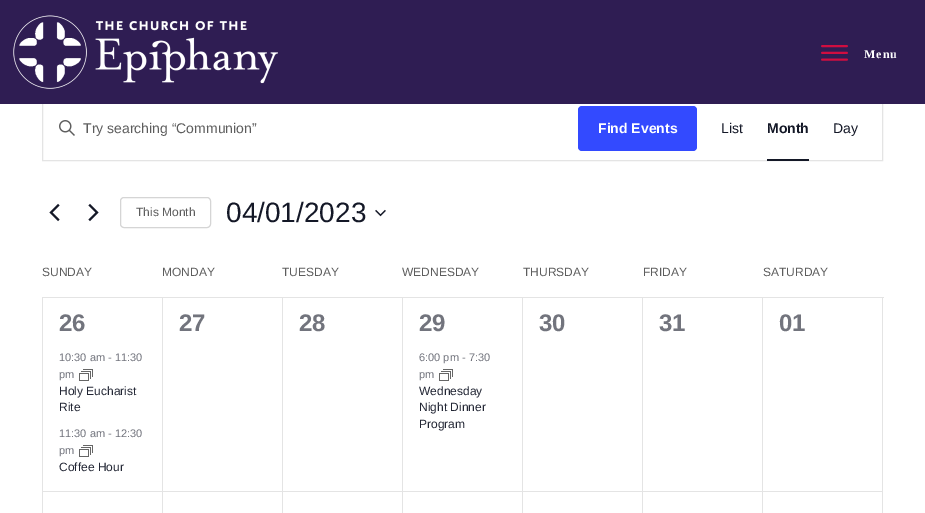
%!PS-Adobe-3.0
%%BoundingBox: 0 0 925 513
%%LanguageLevel: 3
%%Pages: 1
%%EndComments
%%BeginProlog
/setink { dup -16 bitshift 255 div exch dup -8 bitshift 255 and 255 div exch 255 and 255 div setrgbcolor } def
/usefont { [ exch dup neg 0 0 3 -1 roll 0 0 ] selectfont } def
/rrect { 5 dict begin { /r /h /w /y /x } { exch def } forall
  x r add y moveto x w add y 2 copy h add r arct x w add y h add x 1 index r arct
  x y h add x y r arct x y 2 copy exch w add exch r arct closepath end } def
/drawimage { 5 dict begin { /h /w /y /x /name } { exch def } forall
  gsave x y translate w h scale
  w h 8 [w 0 0 h 0 0] name (r) file false 3 colorimage grestore end } def
%%EndProlog
%%BeginSetup
<< /PageSize [925 513] >> setpagedevice
%%EndSetup
%%Page: 1 1
0 513 translate 1 -1 scale
4 setmiterlimit
16#FFFFFF setink
0 0 925 513 rectfill
16#E4E4E4 setink
42.5 96.5 840 64 rectstroke
16#2F1D53 setink
0 0 925 104 rectfill
(img1.raw) 13 15 265 74 drawimage
(img2.raw) 821 45 27 16 drawimage
/LiberationSerif-Bold 12 usefont
16#FFFFFF setink
864 58 moveto 1 0 (Menu) ashow
(img3.raw) 59 120 16 16 drawimage
/LiberationSans-Regular 14 usefont
16#5D5D5D setink
83 133 moveto (Try searching “Communion”) show
16#334AFF setink
578 106 119 45 4 rrect fill
/LiberationSans-Bold 14 usefont
16#FFFFFF setink
598 133 moveto (Find Events) show
/LiberationSans-Regular 14 usefont
16#141827 setink
721 133 moveto (List) show
/LiberationSans-Bold 14 usefont
767 133 moveto (Month) show
767 159 42 2 rectfill
/LiberationSans-Regular 14 usefont
833 133 moveto (Day) show
(img4.raw) 49 203 11 19 drawimage
(img5.raw) 88 203 11 19 drawimage
16#D5D5D5 setink
120.5 197.5 90 30 3.5 rrect stroke
/LiberationSans-Regular 12 usefont
16#5D5D5D setink
136 216 moveto (This Month) show
/LiberationSans-Regular 28 usefont
16#141827 setink
226 222 moveto (04/01/2023) show
(img6.raw) 375 209 11 8 drawimage
/LiberationSans-Regular 12 usefont
16#5D5D5D setink
[
    [(SUNDAY) 42 276]
    [(MONDAY) 162 276]
    [(TUESDAY) 282 276]
    [(WEDNESDAY) 402 276]
    [(THURSDAY) 523 276]
    [(FRIDAY) 643 276]
    [(SATURDAY) 763 276]
] { aload pop moveto show } forall
[
    [42 297 842 1 16#E4E4E4]
    [42 298 1 215 16#E4E4E4]
    [162 298 1 215 16#E4E4E4]
    [43 491 120 1 16#E4E4E4]
] { aload pop setink rectfill } forall
/LiberationSans-Bold 24 usefont
16#72747D setink
59 331 moveto (26) show
/LiberationSans-Regular 11 usefont
59 361 moveto (10:30 am - 11:30) show
59 378 moveto (pm) show
(img7.raw) 79 369 14 12 drawimage
/LiberationSans-Regular 12 usefont
16#222634 setink
59 395 moveto (Holy Eucharist) show
59 411 moveto (Rite) show
/LiberationSans-Regular 11 usefont
16#72747D setink
59 437 moveto (11:30 am - 12:30) show
59 454 moveto (pm) show
(img7.raw) 79 445 14 12 drawimage
/LiberationSans-Regular 12 usefont
16#222634 setink
59 471 moveto (Coffee Hour) show
16#E4E4E4 setink
282 298 1 215 rectfill
163 491 120 1 rectfill
/LiberationSans-Bold 24 usefont
16#72747D setink
179 331 moveto (27) show
16#E4E4E4 setink
402 298 1 215 rectfill
283 491 120 1 rectfill
16#72747D setink
299 331 moveto (28) show
16#E4E4E4 setink
522 298 1 215 rectfill
403 491 120 1 rectfill
16#72747D setink
419 331 moveto (29) show
/LiberationSans-Regular 11 usefont
419 361 moveto (6:00 pm - 7:30) show
419 378 moveto (pm) show
(img7.raw) 439 369 14 12 drawimage
/LiberationSans-Regular 12 usefont
16#222634 setink
[
    [(Wednesday) 419 395]
    [(Night Dinner) 419 411]
    [(Program) 419 428]
] { aload pop moveto show } forall
16#E4E4E4 setink
642 298 1 215 rectfill
523 491 120 1 rectfill
/LiberationSans-Bold 24 usefont
16#72747D setink
539 331 moveto (30) show
16#E4E4E4 setink
762 298 1 215 rectfill
643 491 120 1 rectfill
16#72747D setink
659 331 moveto (31) show
16#E4E4E4 setink
882 298 1 215 rectfill
763 491 120 1 rectfill
16#72747D setink
779 331 moveto (01) show
showpage
%%EOF
